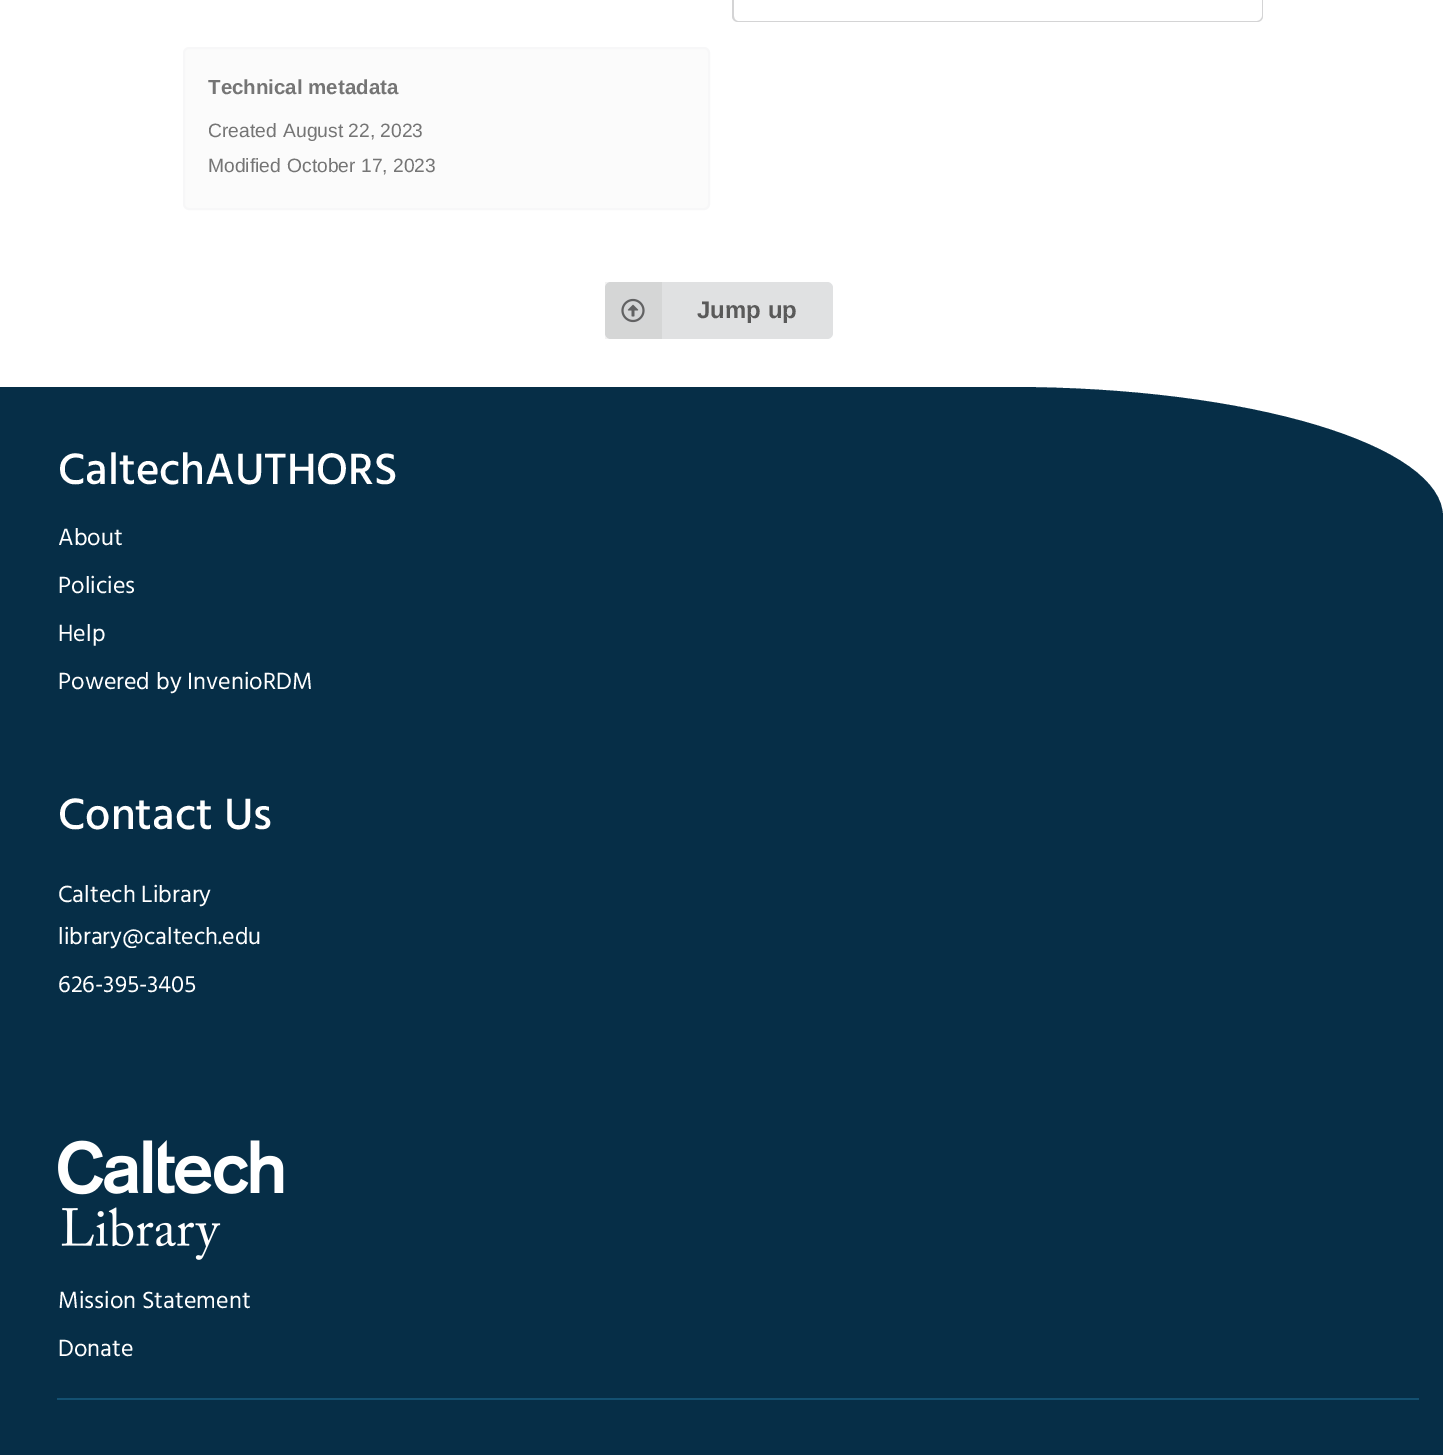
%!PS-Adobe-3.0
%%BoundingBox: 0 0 1443 1455
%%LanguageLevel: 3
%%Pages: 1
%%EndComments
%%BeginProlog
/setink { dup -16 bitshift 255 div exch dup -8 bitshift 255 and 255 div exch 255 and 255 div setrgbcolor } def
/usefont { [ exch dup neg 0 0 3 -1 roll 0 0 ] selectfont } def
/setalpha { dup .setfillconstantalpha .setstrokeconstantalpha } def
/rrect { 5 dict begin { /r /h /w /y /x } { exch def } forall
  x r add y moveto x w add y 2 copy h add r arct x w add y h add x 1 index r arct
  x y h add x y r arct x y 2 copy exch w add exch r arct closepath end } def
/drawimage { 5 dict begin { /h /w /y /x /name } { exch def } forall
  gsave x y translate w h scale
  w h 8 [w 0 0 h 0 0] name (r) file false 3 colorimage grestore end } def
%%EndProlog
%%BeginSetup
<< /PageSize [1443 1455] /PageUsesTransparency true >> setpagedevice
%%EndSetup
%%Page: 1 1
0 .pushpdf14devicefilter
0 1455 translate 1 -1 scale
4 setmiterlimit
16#FFFFFF setink
0 0 1443 1455 rectfill
16#D4D4D5 setink
732 -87 moveto 1263 -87 lineto 1263 16 lineto 1263 20 1260 22 1257 22 curveto 738 22 lineto 735 22 732 20 732 16 curveto closepath 734 -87 moveto 1262 -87 lineto 1262 16 lineto 1262 19 1259 21 1257 21 curveto 738 21 lineto 736 21 734 19 734 16 curveto closepath eofill
16#FBFBFB setink
184 48 525 161 5 rrect gsave fill grestore
16#F7F7F8 setink
2 setlinewidth
stroke
/LiberationSans-Bold 20.5 usefont
16#757575 setink
208 94 moveto (Technical metadata) show
/LiberationSans-Regular 19.25 usefont
[
    [(Created) 208 137]
    [(August 22, 2023) 283 137]
    [(Modified) 208 172]
    [(October 17, 2023) 287 172]
] { aload pop moveto show } forall
16#E0E1E2 setink
605 282 228 57 6 rrect fill
0.05 setalpha
16#000000 setink
605 282 57 57 rectfill
1 setalpha
(img1.raw) 621 298 24 25 drawimage
/LiberationSans-Bold 24 usefont
16#5A5A5A setink
697 318 moveto (Jump up) show
16#062E47 setink
0 387 moveto 1010 387 lineto 1249 387 1443 445 1443 517 curveto 1443 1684 lineto 0 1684 lineto closepath fill
/Hind-Medium 45 usefont
16#FFFFFF setink
58 484 moveto (CaltechAUTHORS) show
/Hind-Regular 24 usefont
[
    [(About) 58 545]
    [(Policies) 58 593]
    [(Help) 58 641]
    [(Powered by InvenioRDM) 58 689]
] { aload pop moveto show } forall
/Hind-Medium 45 usefont
58 829 moveto (Contact Us) show
/Hind-Regular 24 usefont
[
    [(Caltech Library) 58 902]
    [(library@caltech.edu) 58 944]
    [(626-395-3405) 58 992]
] { aload pop moveto show } forall
(img2.raw) 58 1140 226 120 drawimage
58 1308 moveto (Mission Statement) show
58 1356 moveto (Donate) show
16#135071 setink
57 1398 1362 2 rectfill
.poppdf14devicefilter showpage
%%EOF
